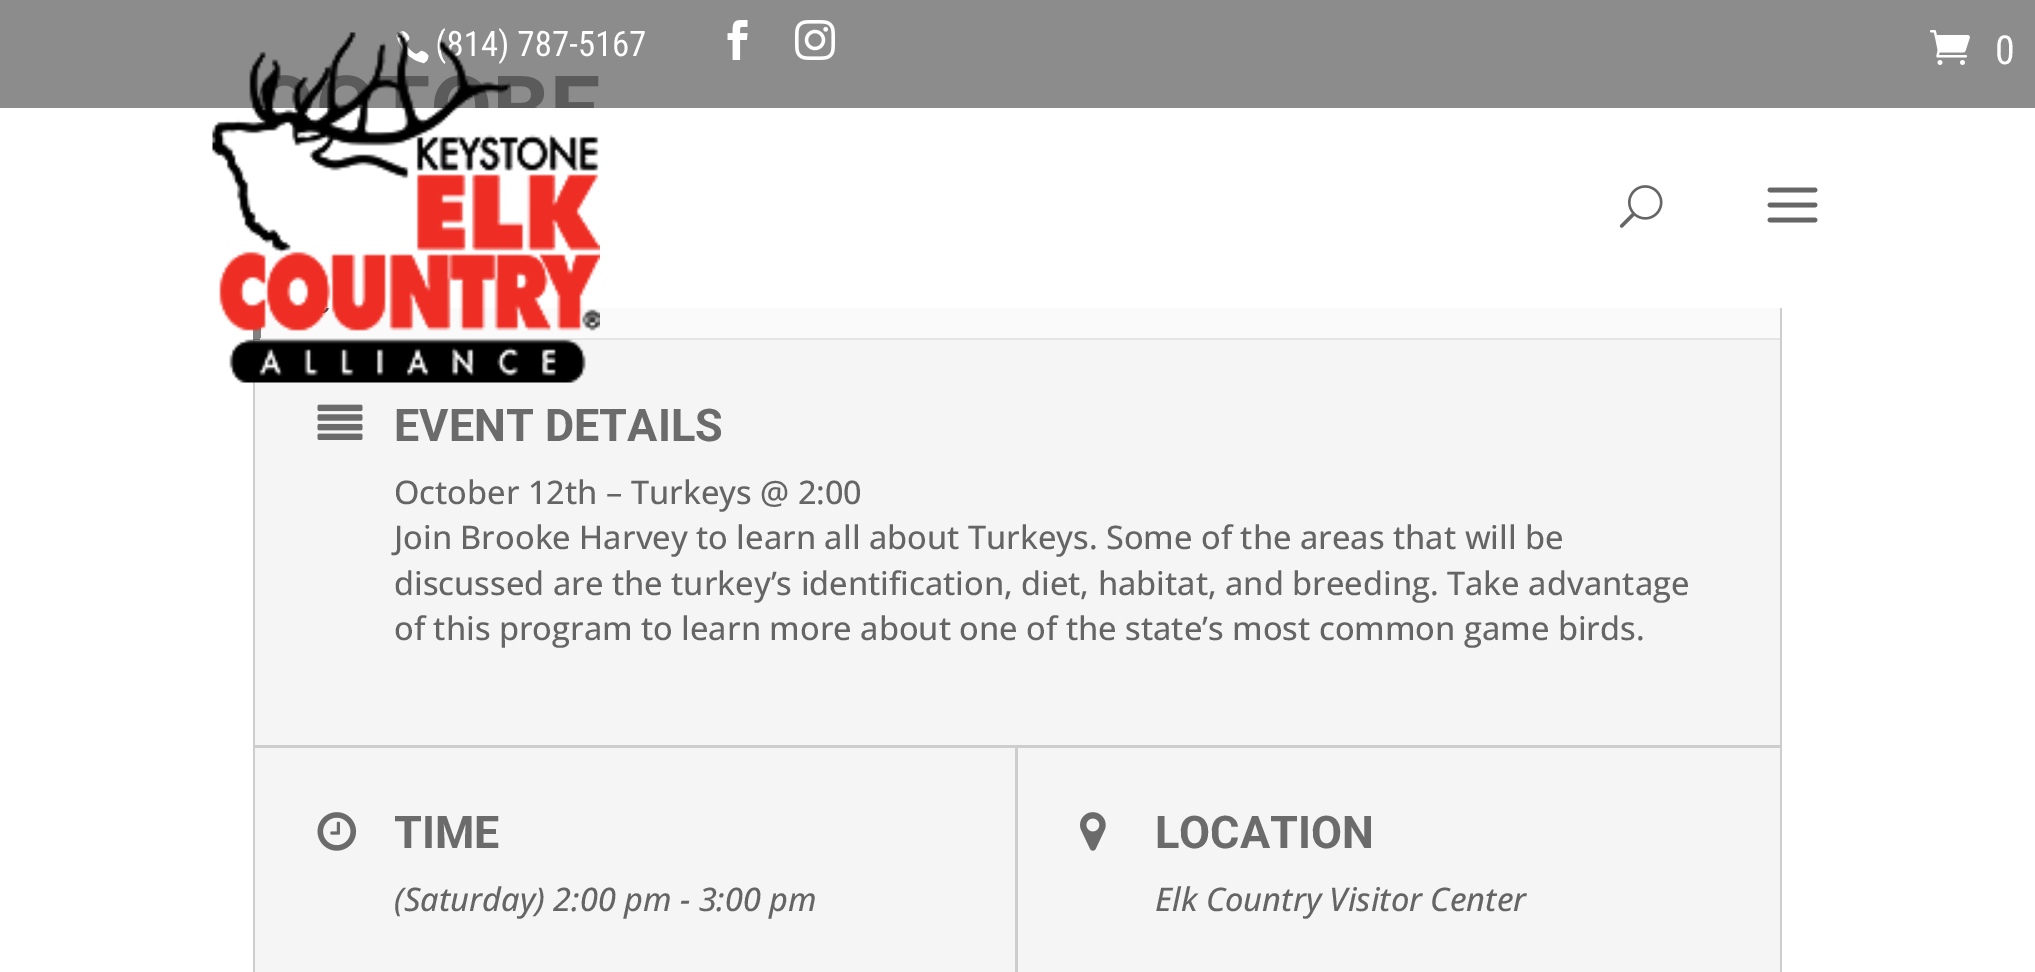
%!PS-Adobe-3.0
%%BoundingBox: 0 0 2035 972
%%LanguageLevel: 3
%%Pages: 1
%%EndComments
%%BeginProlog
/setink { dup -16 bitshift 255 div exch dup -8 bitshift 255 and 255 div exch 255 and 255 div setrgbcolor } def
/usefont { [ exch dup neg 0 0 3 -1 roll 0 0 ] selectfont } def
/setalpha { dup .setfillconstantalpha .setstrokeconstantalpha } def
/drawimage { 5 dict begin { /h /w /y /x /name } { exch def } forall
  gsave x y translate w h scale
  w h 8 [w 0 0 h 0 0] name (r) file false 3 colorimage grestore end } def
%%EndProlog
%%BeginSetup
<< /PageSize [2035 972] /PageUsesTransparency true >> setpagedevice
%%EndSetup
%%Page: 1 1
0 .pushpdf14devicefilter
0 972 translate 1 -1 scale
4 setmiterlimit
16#FFFFFF setink
0 0 2035 972 rectfill
0.76 setalpha
16#686868 setink
0 0 2035 108 rectfill
1 setalpha
(img1.raw) 396 31 33 33 drawimage
/RobotoCondensed-Regular 35 usefont
16#FFFFFF setink
435 56 moveto (\(814\) 787-5167) show
(img2.raw) 727 20 21 40 drawimage
(img3.raw) 795 20 40 40 drawimage
(img4.raw) 1930 30 40 35 drawimage
/RobotoCondensed-Regular 40 usefont
1995 64 moveto (0) show
16#CDCDCD setink
1776 199 moveto 1778 201 1780 204 1780 208 curveto 1780 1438 lineto 1780 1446 1774 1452 1768 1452 curveto 1776 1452 1782 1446 1782 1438 curveto 1782 208 lineto 1782 204 1781 200 1778 197 curveto closepath fill
16#FAFAFA setink
253 206 moveto 253 340 lineto 1780 340 lineto 1780 208 lineto 1780 201 1774 195 1768 195 curveto 268 195 lineto 261 195 255 199 253 204 curveto closepath fill
16#808080 setink
253 206 moveto 253 201 257 198 261 196 curveto 261 340 lineto 253 340 lineto closepath fill
16#FFFFFF setink
253 195 1529 113 rectfill
16#E5E5E5 setink
260 338 1520 2 rectfill
16#CDCDCD setink
253 340 moveto 256 340 lineto 256 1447 lineto 254 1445 253 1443 253 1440 curveto closepath fill
16#F5F5F5 setink
255 340 1525 405 rectfill
(img5.raw) 212 32 388 351 drawimage
(img6.raw) 1619 185 44 43 drawimage
(img7.raw) 1767 187 51 36 drawimage
16#CDCDCD setink
255 745 1525 3 rectfill
(img8.raw) 317 404 46 36 drawimage
/Roboto-Bold 45 usefont
16#6B6B6B setink
394 441 moveto (EVENT DETAILS) show
/OpenSans-Medium 32.5 usefont
16#656565 setink
[
    [(October 12th – Turkeys @ 2:00) 394 504]
    [(Join Brooke Harvey to learn all about Turkeys. Some of the areas that will be) 394 549]
    [(discussed are the turkey’s identification, diet, habitat, and breeding. Take advantage) 394 595]
    [(of this program to learn more about one of the state’s most common game birds.) 394 640]
] { aload pop moveto show } forall
16#F5F5F5 setink
255 748 1525 224 rectfill
16#CDCDCD setink
1015 748 3 224 rectfill
(img9.raw) 317 812 40 39 drawimage
/Roboto-Bold 45 usefont
16#6B6B6B setink
394 848 moveto (TIME) show
/OpenSans-MediumItalic 32.5 usefont
16#656565 setink
394 911 moveto (\(Saturday\) 2:00 pm - 3:00 pm) show
(img10.raw) 1080 812 26 39 drawimage
/Roboto-Bold 45 usefont
16#6B6B6B setink
1155 848 moveto (LOCATION) show
/OpenSans-MediumItalic 32.5 usefont
16#656565 setink
1155 911 moveto (Elk Country Visitor Center) show
.poppdf14devicefilter showpage
%%EOF
